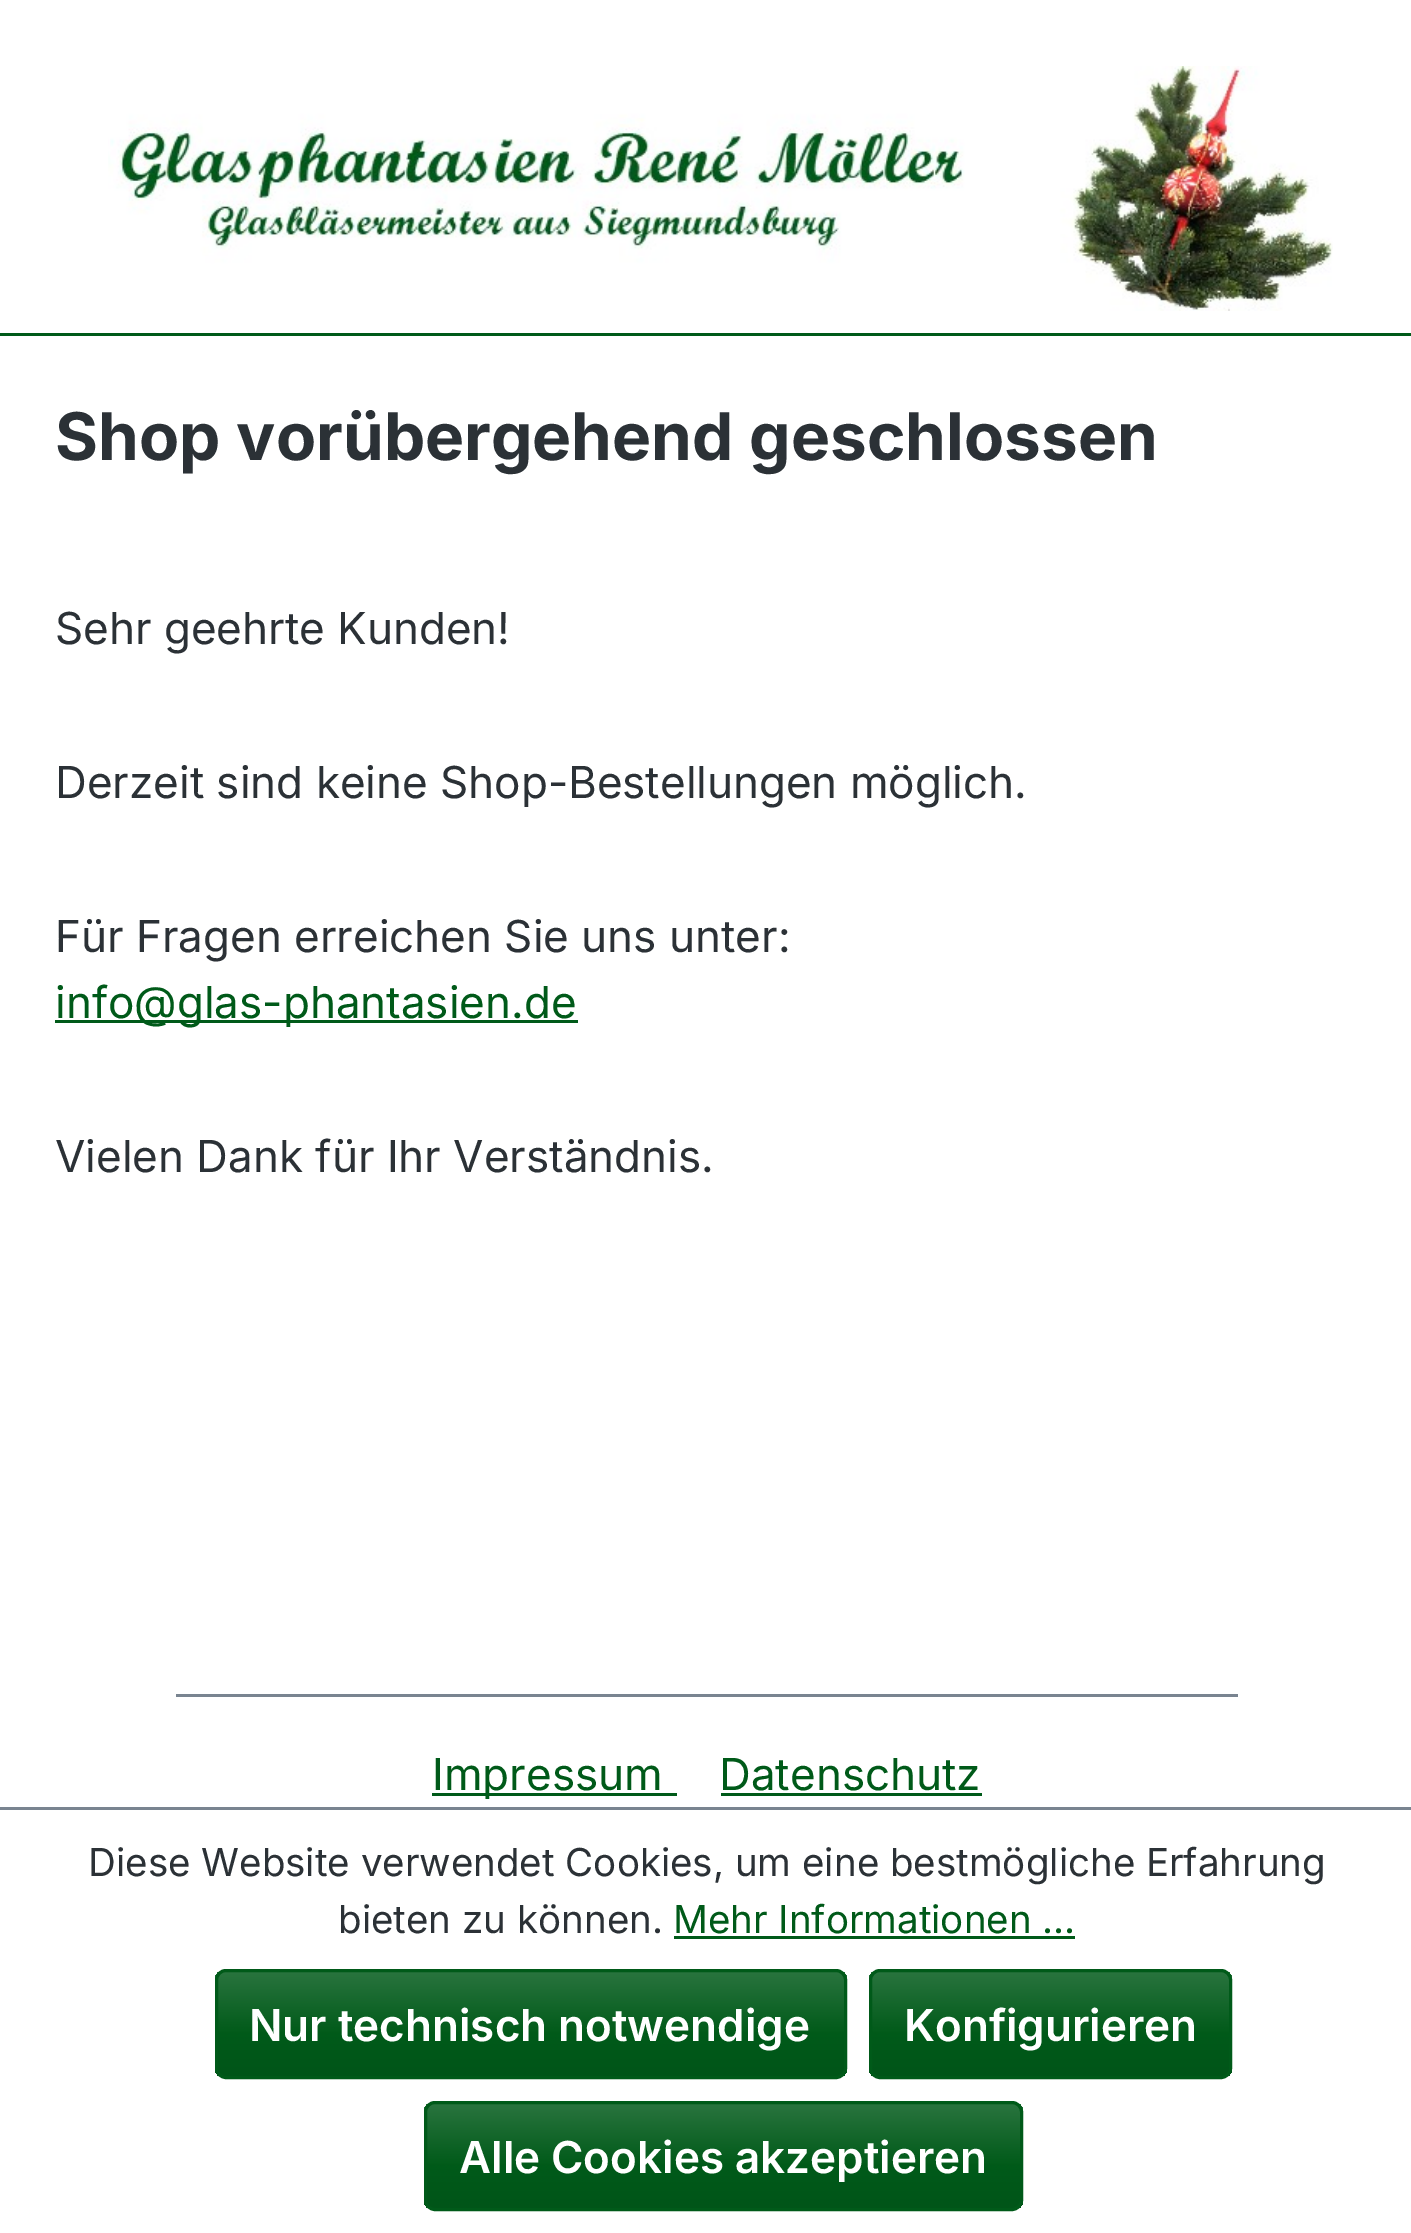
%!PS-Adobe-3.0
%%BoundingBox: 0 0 1411 2233
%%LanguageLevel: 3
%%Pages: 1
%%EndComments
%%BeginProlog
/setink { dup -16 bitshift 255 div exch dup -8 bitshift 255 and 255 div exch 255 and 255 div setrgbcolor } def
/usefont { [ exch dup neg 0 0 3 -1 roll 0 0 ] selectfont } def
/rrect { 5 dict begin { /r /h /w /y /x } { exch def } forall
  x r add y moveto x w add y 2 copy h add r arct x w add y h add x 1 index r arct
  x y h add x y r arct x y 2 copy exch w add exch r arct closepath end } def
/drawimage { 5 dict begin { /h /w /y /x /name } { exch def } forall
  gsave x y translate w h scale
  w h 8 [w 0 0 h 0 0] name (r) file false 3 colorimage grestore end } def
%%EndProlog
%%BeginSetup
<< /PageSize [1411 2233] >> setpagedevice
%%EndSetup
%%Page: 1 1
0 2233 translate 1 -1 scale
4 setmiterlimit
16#FFFFFF setink
0 0 1411 2233 rectfill
16#005A19 setink
0 333 1411 3 rectfill
(img1.raw) 108 66 1225 245 drawimage
/Inter-Bold 65.7 usefont
16#2B3136 setink
55 460 moveto (Shop vorübergehend geschlossen) show
/Inter-Regular 44 usefont
[
    [(Sehr geehrte Kunden!) 55 644]
    [(Derzeit sind keine Shop-Bestellungen möglich.) 55 798]
    [(Für Fragen erreichen Sie uns unter:) 55 952]
] { aload pop moveto show } forall
16#005A19 setink
55 1020 523 3 rectfill
55 1018 moveto (info@glas-phantasien.de) show
16#2B3136 setink
55 1172 moveto (Vielen Dank für Ihr Verständnis.) show
16#798490 setink
176 1694 1062 3 rectfill
16#005A19 setink
432 1793 245 3 rectfill
432 1790 moveto (Impressum) show
719 1790 moveto (Datenschutz) show
721 1793 261 3 rectfill
16#798490 setink
0 1807 1411 3 rectfill
/Inter-Regular 38.5 usefont
16#2B3136 setink
88 1876 moveto (Diese Website verwendet Cookies, um eine bestmögliche Erfahrung) show
338 1933 moveto (bieten zu können.) show
16#005A19 setink
673 1933 moveto (Mehr Informationen ...) show
674 1936 401 3 rectfill
gsave
215 1969 632 110 11 rrect clip newpath
gsave 215 1972 moveto 847 1972 lineto 847 2076 lineto 215 2076 lineto closepath clip newpath
<< /ShadingType 2 /ColorSpace /DeviceRGB /Coords [531 1972 531 2076] /Extend [true true] /Function << /FunctionType 3 /Domain [0 1] /Functions [<< /FunctionType 2 /Domain [0 1] /C0 [0.161 0.455 0.243] /C1 [0 0.353 0.098] /N 1 >> << /FunctionType 2 /Domain [0 1] /C0 [0 0.353 0.098] /C1 [0 0.333 0.094] /N 1 >>] /Bounds [0.6] /Encode [0 1 0 1] >> >> shfill grestore
grestore
3 setlinewidth
216.5 1970.5 629 107 9.5 rrect stroke
/Inter-SemiBold 44 usefont
16#FFFFFF setink
249 2041 moveto (Nur technisch notwendige) show
gsave
869 1969 363 110 11 rrect clip newpath
gsave 869 1972 moveto 1232 1972 lineto 1232 2076 lineto 869 2076 lineto closepath clip newpath
<< /ShadingType 2 /ColorSpace /DeviceRGB /Coords [1051 1972 1051 2076] /Extend [true true] /Function << /FunctionType 3 /Domain [0 1] /Functions [<< /FunctionType 2 /Domain [0 1] /C0 [0.161 0.455 0.243] /C1 [0 0.353 0.098] /N 1 >> << /FunctionType 2 /Domain [0 1] /C0 [0 0.353 0.098] /C1 [0 0.333 0.094] /N 1 >>] /Bounds [0.6] /Encode [0 1 0 1] >> >> shfill grestore
grestore
16#005A19 setink
870.5 1970.5 360 107 9.5 rrect stroke
16#FFFFFF setink
904 2041 moveto (Konfigurieren) show
gsave
424 2101 599 110 11 rrect clip newpath
gsave 424 2104 moveto 1023 2104 lineto 1023 2208 lineto 424 2208 lineto closepath clip newpath
<< /ShadingType 2 /ColorSpace /DeviceRGB /Coords [723 2104 723 2208] /Extend [true true] /Function << /FunctionType 3 /Domain [0 1] /Functions [<< /FunctionType 2 /Domain [0 1] /C0 [0.161 0.455 0.243] /C1 [0 0.353 0.098] /N 1 >> << /FunctionType 2 /Domain [0 1] /C0 [0 0.353 0.098] /C1 [0 0.333 0.094] /N 1 >>] /Bounds [0.6] /Encode [0 1 0 1] >> >> shfill grestore
grestore
16#005A19 setink
425.5 2102.5 596 107 9.5 rrect stroke
16#FFFFFF setink
459 2173 moveto (Alle Cookies akzeptieren) show
showpage
%%EOF
